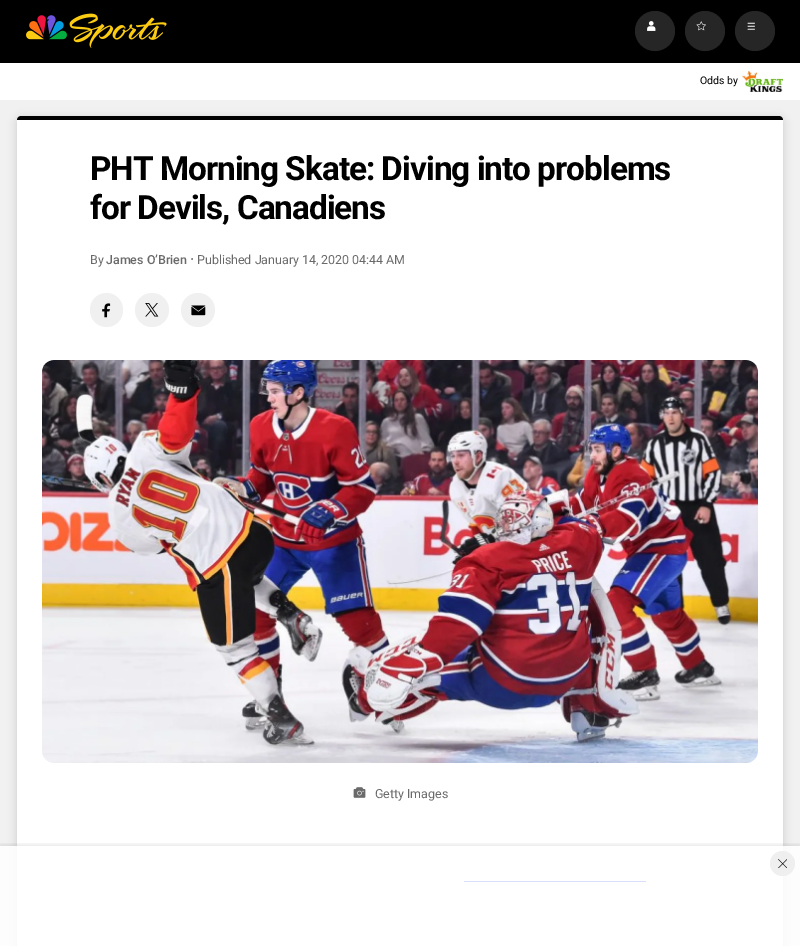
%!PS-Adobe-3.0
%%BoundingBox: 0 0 800 946
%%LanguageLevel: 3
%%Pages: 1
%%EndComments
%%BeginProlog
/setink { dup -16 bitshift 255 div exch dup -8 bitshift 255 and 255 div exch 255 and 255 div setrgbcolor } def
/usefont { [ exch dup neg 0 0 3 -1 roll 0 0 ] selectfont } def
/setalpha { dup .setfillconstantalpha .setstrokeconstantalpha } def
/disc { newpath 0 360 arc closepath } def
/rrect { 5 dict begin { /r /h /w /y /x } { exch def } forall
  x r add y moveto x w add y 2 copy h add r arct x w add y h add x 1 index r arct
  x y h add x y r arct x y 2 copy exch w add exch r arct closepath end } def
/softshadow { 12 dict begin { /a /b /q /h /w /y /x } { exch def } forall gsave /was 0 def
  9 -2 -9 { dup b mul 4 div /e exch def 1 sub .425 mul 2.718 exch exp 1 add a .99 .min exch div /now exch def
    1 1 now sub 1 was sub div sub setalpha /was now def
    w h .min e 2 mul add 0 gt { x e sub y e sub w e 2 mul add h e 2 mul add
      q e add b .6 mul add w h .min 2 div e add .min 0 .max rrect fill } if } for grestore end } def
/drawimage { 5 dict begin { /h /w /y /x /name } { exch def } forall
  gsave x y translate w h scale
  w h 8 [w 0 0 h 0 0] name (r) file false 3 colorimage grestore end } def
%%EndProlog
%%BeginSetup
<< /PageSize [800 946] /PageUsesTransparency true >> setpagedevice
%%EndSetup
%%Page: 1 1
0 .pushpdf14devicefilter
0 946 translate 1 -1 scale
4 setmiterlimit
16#F1F1F1 setink
0 0 800 946 rectfill
16#000000 setink
0 0 800 63 rectfill
(img1.raw) 26 13 141 35 drawimage
16#262626 setink
655 31 20 disc fill
(img2.raw) 647 21 9 10 drawimage
705 31 20 disc fill
(img3.raw) 696 21 10 10 drawimage
755 31 20 disc fill
(img4.raw) 747 22 8 8 drawimage
16#FFFFFF setink
0 63 800 37 rectfill
/Roboto-Regular 10.5 usefont
16#000000 setink
700 84 moveto (Odds by) show
(img5.raw) 742 71 41 21 drawimage
17 118 766 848 5 5 0.15 softshadow
16#FFFFFF setink
17 116 766 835 5 rrect fill
16#000000 setink
21 116 moveto 779 116 lineto 781 116 783 118 783 120 curveto 17 120 lineto 17 118 19 116 21 116 curveto closepath fill
/Roboto-Bold 33.3 usefont
90 180 moveto -1 0 (PHT Morning Skate: Diving into problems) ashow
90 219 moveto -1 0 (for Devils, Canadiens) ashow
/Roboto-Regular 12.5 usefont
16#6A6A6A setink
90 264 moveto -0.05 0 (By) ashow
/Roboto-Medium 12.5 usefont
106 264 moveto -0.05 0 (James O’Brien) ashow
192.1 259 0.8 disc fill
/Roboto-Regular 12.5 usefont
197 264 moveto -0.05 0 (Published January 14, 2020 04:44 AM) ashow
16#F0F0F0 setink
90 293 33 34 16.5 rrect fill
(img6.raw) 102 303 9 15 drawimage
152 310 17 disc fill
(img7.raw) 145 303 14 14 drawimage
198 310 17 disc fill
(img8.raw) 191 305 15 11 drawimage
(img9.raw) 42 360 716 403 drawimage
(img10.raw) 353 787 13 11 drawimage
16#6A6A6A setink
375 798 moveto -0.05 0 (Getty Images) ashow
16#0329E7 setink
464 881 182 1 rectfill
gsave
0 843 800 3 rectclip
16#000000 setink
0 844 800 100 0 2 0.08 softshadow
grestore
0.85 setalpha
16#FFFFFF setink
0 846 800 100 rectfill
1 setalpha
16#EFEFEF setink
782.5 863.5 12.5 disc fill
(img11.raw) 778 859 9 9 drawimage
.poppdf14devicefilter showpage
%%EOF
